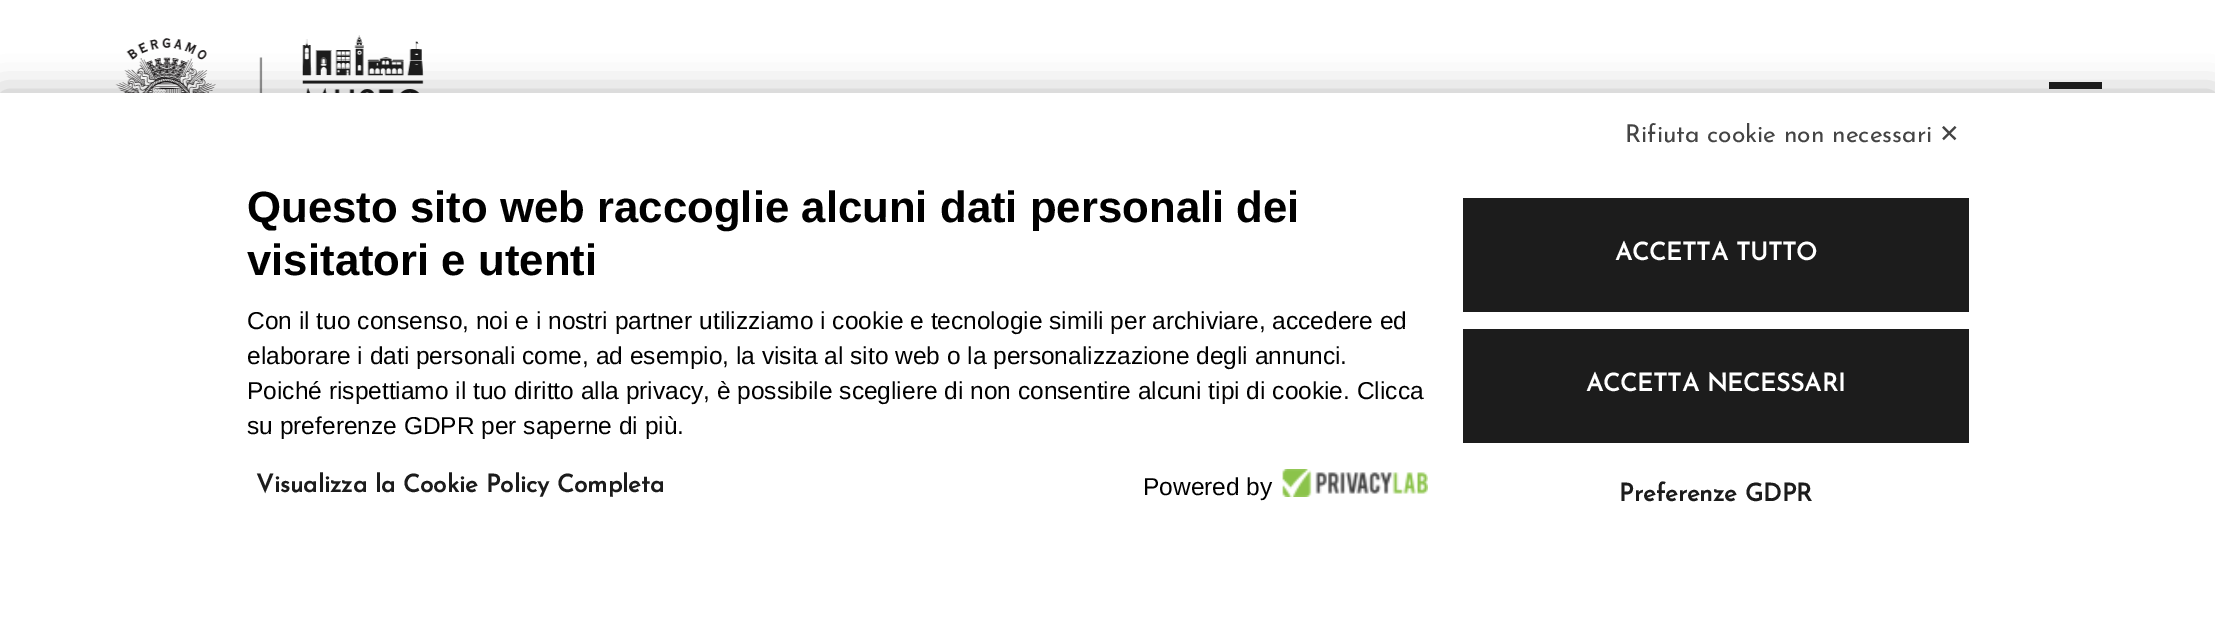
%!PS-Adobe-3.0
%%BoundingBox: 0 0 2215 620
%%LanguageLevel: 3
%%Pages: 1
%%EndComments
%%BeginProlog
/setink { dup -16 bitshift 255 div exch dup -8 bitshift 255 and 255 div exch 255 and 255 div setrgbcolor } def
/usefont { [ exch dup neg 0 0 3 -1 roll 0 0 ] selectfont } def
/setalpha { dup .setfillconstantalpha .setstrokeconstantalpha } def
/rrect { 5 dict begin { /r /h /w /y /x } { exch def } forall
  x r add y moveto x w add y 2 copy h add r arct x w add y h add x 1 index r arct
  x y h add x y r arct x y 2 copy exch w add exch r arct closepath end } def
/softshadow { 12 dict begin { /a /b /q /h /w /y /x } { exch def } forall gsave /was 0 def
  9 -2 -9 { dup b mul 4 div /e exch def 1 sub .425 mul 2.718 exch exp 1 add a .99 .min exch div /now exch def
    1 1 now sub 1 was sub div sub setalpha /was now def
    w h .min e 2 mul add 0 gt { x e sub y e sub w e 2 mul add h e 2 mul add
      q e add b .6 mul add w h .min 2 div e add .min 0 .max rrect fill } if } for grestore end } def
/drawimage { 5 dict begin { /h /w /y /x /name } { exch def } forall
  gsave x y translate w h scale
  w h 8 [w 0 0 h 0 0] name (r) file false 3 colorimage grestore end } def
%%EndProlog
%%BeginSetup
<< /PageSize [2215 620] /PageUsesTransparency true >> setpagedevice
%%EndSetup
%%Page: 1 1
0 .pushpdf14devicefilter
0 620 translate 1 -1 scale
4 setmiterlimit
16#FFFFFF setink
0 0 2215 620 rectfill
(img1.raw) 115 35 309 58 drawimage
16#1C1C1C setink
2049 82 53 7 rectfill
16#000000 setink
0 93 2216 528 0 17.5 0.27 softshadow
16#FFFFFF setink
0 93 2215 527 rectfill
/JosefinSans-Thin 24.5 usefont
16#444444 setink
1625 142 moveto (Rifiuta cookie non necessari) show
/DejaVuSans-Regular 24.5 usefont
1939 142 moveto (✕) show
/LiberationSans-Bold 43.75 usefont
16#000000 setink
247 222 moveto (Questo sito web raccoglie alcuni dati personali dei) show
247 275 moveto (visitatori e utenti) show
/LiberationSans-Regular 24.5 usefont
[
    [(Con il tuo consenso, noi e i nostri partner utilizziamo i cookie e tecnologie simili per archiviare, accedere ed) 247 329]
    [(elaborare i dati personali come, ad esempio, la visita al sito web o la personalizzazione degli annunci.) 247 364]
    [(Poiché rispettiamo il tuo diritto alla privacy, è possibile scegliere di non consentire alcuni tipi di cookie. Clicca) 247 399]
    [(su preferenze GDPR per saperne di più.) 247 434]
] { aload pop moveto show } forall
/JosefinSans-Bold 24.5 usefont
16#1C1C1C setink
256 492 moveto (Visualizza la Cookie Policy Completa) show
/LiberationSans-Regular 24.5 usefont
16#000000 setink
1143 495 moveto (Powered by) show
(img2.raw) 1282 469 146 28 drawimage
16#1C1C1C setink
1463 198 506 114 rectfill
/JosefinSans-Bold 24.5 usefont
16#FFFFFF setink
1615 260 moveto (ACCETTA TUTTO) show
16#1C1C1C setink
1463 329 506 114 rectfill
16#FFFFFF setink
1586 391 moveto (ACCETTA NECESSARI) show
16#1C1C1C setink
1619 501 moveto (Preferenze GDPR) show
.poppdf14devicefilter showpage
%%EOF
